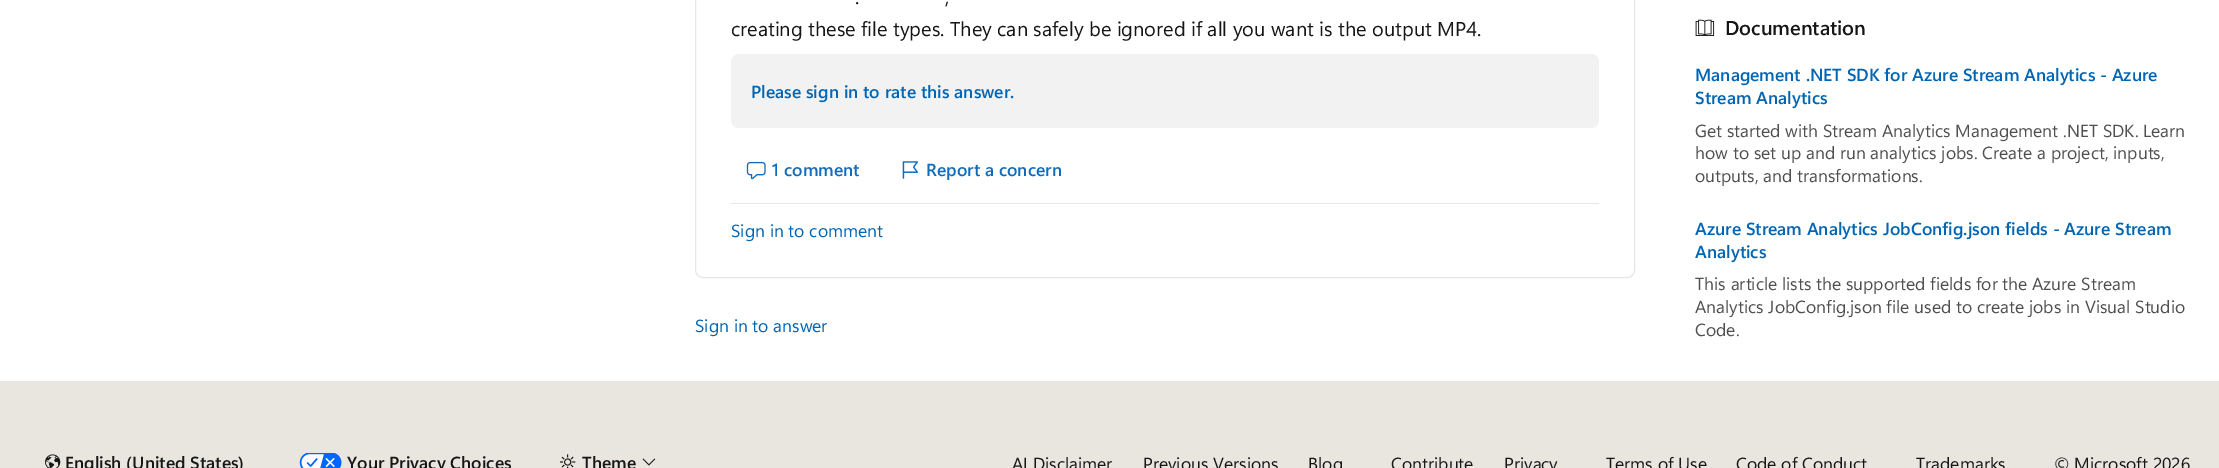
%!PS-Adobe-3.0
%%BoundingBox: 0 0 2219 468
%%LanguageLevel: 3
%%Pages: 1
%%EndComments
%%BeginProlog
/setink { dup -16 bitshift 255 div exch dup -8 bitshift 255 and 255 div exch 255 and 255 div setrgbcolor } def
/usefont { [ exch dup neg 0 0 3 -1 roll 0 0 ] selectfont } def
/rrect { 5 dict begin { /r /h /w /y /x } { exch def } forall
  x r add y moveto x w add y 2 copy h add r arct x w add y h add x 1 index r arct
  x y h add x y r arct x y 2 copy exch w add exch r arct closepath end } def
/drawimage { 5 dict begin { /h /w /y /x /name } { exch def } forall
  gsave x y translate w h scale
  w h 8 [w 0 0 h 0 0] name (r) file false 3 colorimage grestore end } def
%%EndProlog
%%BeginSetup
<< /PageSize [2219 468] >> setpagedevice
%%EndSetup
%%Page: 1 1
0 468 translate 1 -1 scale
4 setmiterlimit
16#FFFFFF setink
0 0 2219 468 rectfill
16#E6E6E6 setink
695.5 -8.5 939 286 7.5 rrect stroke
/SegoeUI-Regular 20 usefont
16#161616 setink
[
    [(.) 855 4]
    [(,) 945 4]
    [(creating these file types. They can safely be ignored if all you want is the output MP4.) 731 36]
] { aload pop moveto show } forall
16#F2F2F2 setink
731 54 868 74 8 rrect fill
/SegoeUI-SemiBold 17.5 usefont
16#0065B3 setink
751 98 moveto (Please sign in to rate this answer.) show
(img1.raw) 746 161 20 19 drawimage
16#0F6CBD setink
772 176 moveto (1 comment) show
(img2.raw) 902 161 16 18 drawimage
926 176 moveto (Report a concern) show
16#E6E6E6 setink
731 203 868 1 rectfill
/SegoeUI-Regular 17.5 usefont
16#0065B3 setink
731 237 moveto (Sign in to comment) show
695 332 moveto (Sign in to answer) show
(img3.raw) 1695 19 20 17 drawimage
/SegoeUI-SemiBold 20 usefont
16#161616 setink
1725 35 moveto (Documentation) show
/SegoeUI-SemiBold 17.5 usefont
16#0065B3 setink
1695 81 moveto (Management .NET SDK for Azure Stream Analytics - Azure) show
1695 104 moveto (Stream Analytics) show
/SegoeUI-Regular 17.5 usefont
16#505050 setink
[
    [(Get started with Stream Analytics Management .NET SDK. Learn) 1695 137]
    [(how to set up and run analytics jobs. Create a project, inputs,) 1695 159]
    [(outputs, and transformations.) 1695 182]
] { aload pop moveto show } forall
/SegoeUI-SemiBold 17.5 usefont
16#0065B3 setink
1695 235 moveto (Azure Stream Analytics JobConfig.json fields - Azure Stream) show
1695 258 moveto (Analytics) show
/SegoeUI-Regular 17.5 usefont
16#505050 setink
[
    [(This article lists the supported fields for the Azure Stream) 1695 290]
    [(Analytics JobConfig.json file used to create jobs in Visual Studio) 1695 313]
    [(Code.) 1695 336]
] { aload pop moveto show } forall
16#E8E6DF setink
0 382 2219 86 rectfill
16#E6E6E6 setink
0 381 2219 1 rectfill
(img4.raw) 45 454 16 14 drawimage
/SegoeUI-SemiBold 17.5 usefont
16#161616 setink
65 469 moveto (English \(United States\)) show
(img5.raw) 299 453 43 15 drawimage
347 469 moveto (Your Privacy Choices) show
(img6.raw) 560 454 16 14 drawimage
582 469 moveto (Theme) show
(img7.raw) 642 458 14 8 drawimage
/SegoeUI-Regular 17.5 usefont
[
    [(AI Disclaimer) 1012 470]
    [(Previous Versions) 1143 470]
    [(Blog) 1308 470]
    [(Contribute) 1391 470]
    [(Privacy) 1504 470]
    [(Terms of Use) 1606 470]
    [(Code of Conduct) 1736 470]
    [(Trademarks) 1916 470]
    [(© Microsoft 2026) 2054 470]
] { aload pop moveto show } forall
showpage
%%EOF
